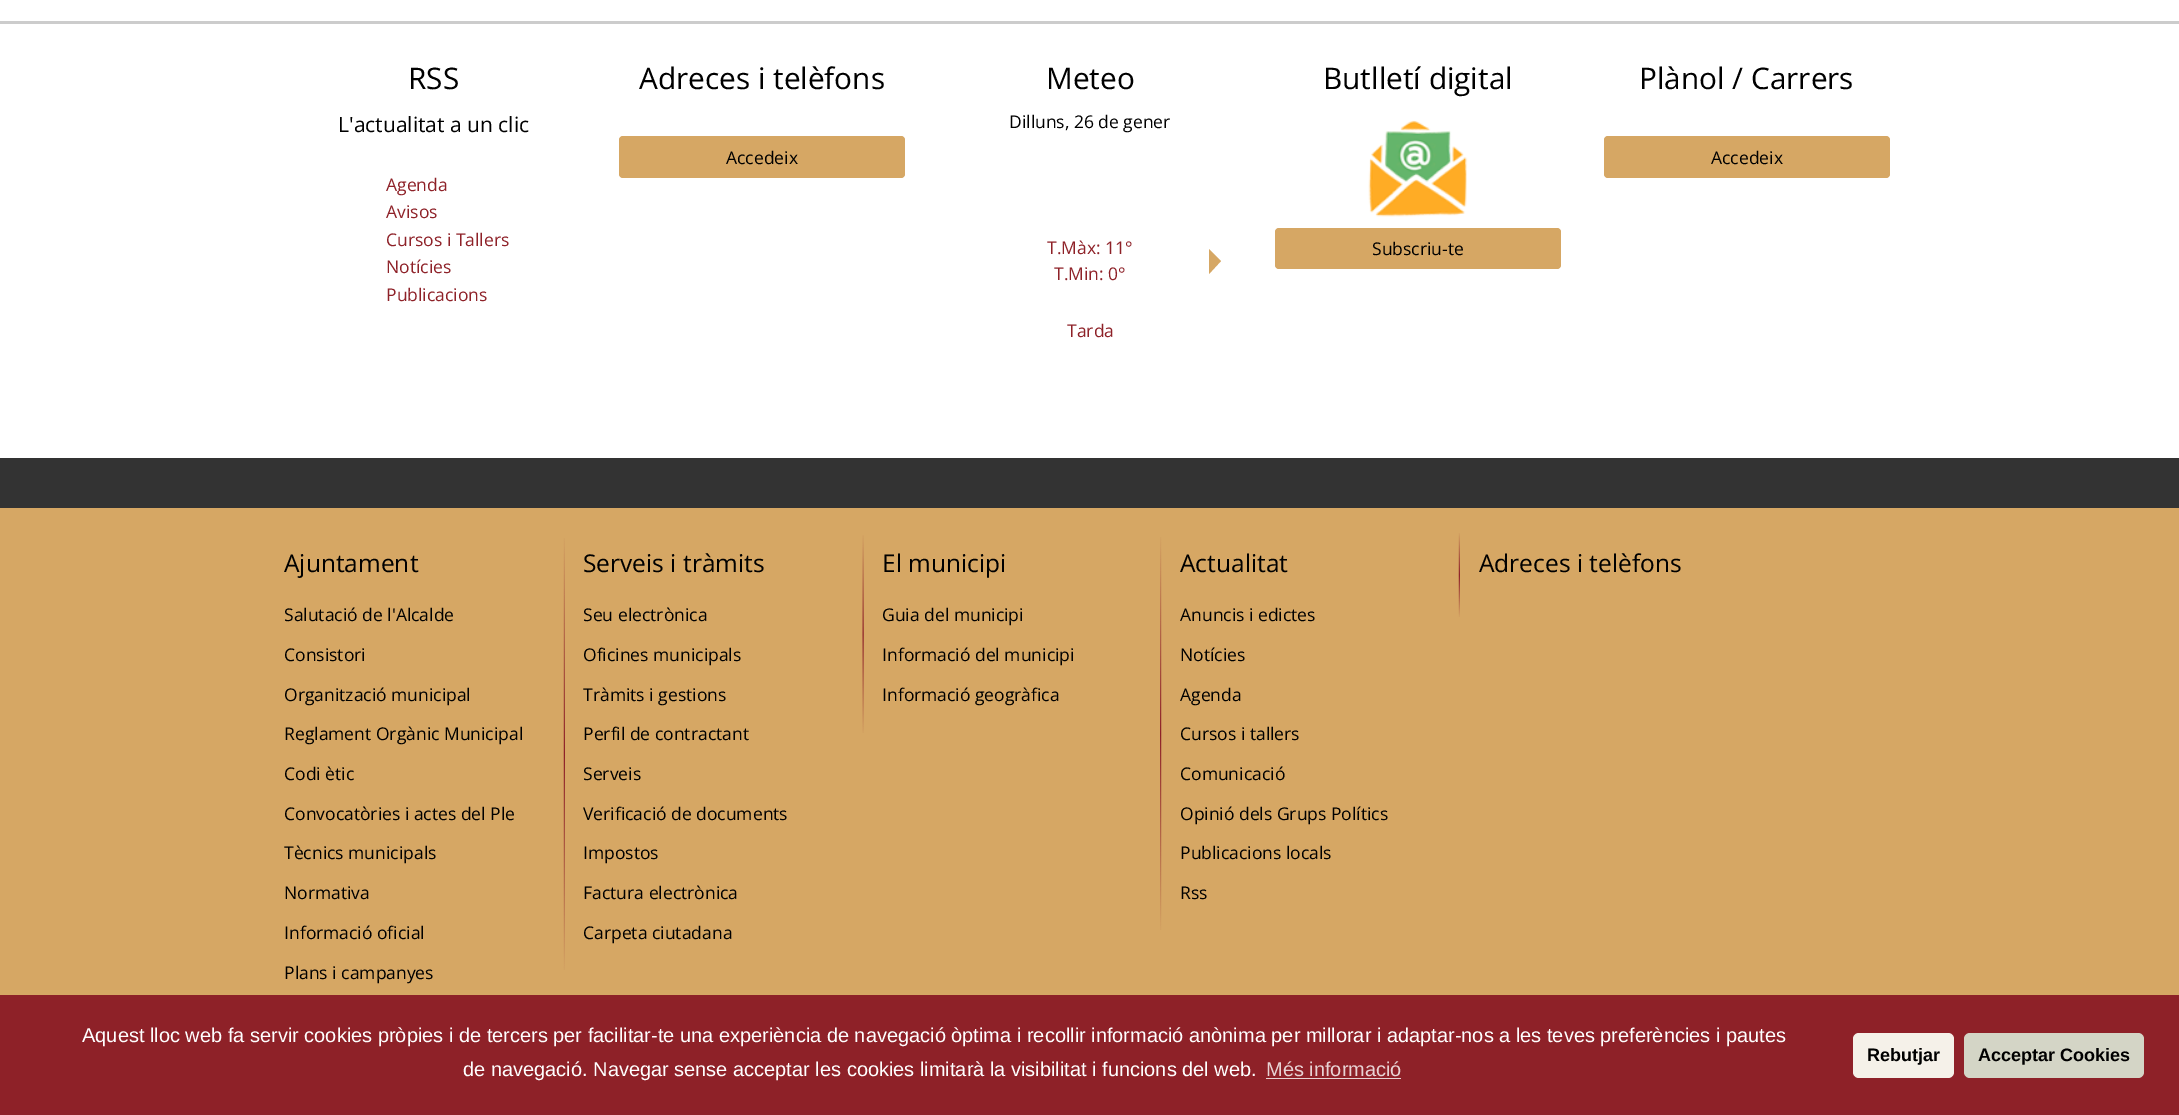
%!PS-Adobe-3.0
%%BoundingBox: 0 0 2179 1115
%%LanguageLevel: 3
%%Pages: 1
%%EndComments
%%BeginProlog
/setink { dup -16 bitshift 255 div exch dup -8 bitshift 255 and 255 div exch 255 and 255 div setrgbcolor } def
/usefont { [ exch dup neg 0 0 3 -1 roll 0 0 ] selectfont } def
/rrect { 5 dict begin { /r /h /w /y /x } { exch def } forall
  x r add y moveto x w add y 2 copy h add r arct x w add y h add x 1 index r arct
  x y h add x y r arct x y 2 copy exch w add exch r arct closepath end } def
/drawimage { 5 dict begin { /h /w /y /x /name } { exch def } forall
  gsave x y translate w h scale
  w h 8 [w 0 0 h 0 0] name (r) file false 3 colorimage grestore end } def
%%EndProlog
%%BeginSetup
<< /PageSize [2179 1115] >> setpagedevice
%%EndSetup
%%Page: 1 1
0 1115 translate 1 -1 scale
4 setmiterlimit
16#FFFFFF setink
0 0 2179 1115 rectfill
16#CCCCCC setink
0 21 2179 3 rectfill
/OpenSans-Regular 29.75 usefont
16#000000 setink
408 89 moveto (RSS) show
/OpenSans-Regular 21 usefont
338 132 moveto (L'actualitat a un clic) show
/OpenSans-Regular 17.5 usefont
16#8E2128 setink
[
    [(Agenda) 386 191]
    [(Avisos) 386 218]
    [(Cursos i Tallers) 386 246]
    [(Notícies) 386 273]
    [(Publicacions) 386 301]
] { aload pop moveto show } forall
/OpenSans-Regular 29.75 usefont
16#000000 setink
639 89 moveto (Adreces i telèfons) show
16#D6A764 setink
619 136 286 42 4 rrect fill
/OpenSans-Regular 17.5 usefont
16#000000 setink
726 164 moveto (Accedeix) show
/OpenSans-Regular 29.75 usefont
1046 89 moveto (Meteo) show
/OpenSans-Regular 17.5 usefont
1009 128 moveto (Dilluns, 26 de gener) show
16#8E2128 setink
[
    [(T.Màx: 11°) 1047 254]
    [(T.Min: 0°) 1054 280]
    [(Tarda) 1067 337]
] { aload pop moveto show } forall
16#D6A764 setink
1209 274 moveto 1209 249 lineto 1221 261 lineto closepath fill
/OpenSans-Regular 29.75 usefont
16#000000 setink
1323 89 moveto (Butlletí digital) show
(img1.raw) 1368 120 100 97 drawimage
16#D6A764 setink
1275 228 286 41 4 rrect fill
/OpenSans-Regular 17.5 usefont
16#000000 setink
1372 255 moveto (Subscriu-te) show
/OpenSans-Regular 29.75 usefont
1639 89 moveto (Plànol / Carrers) show
16#D6A764 setink
1604 136 286 42 4 rrect fill
/OpenSans-Regular 17.5 usefont
16#000000 setink
1711 164 moveto (Accedeix) show
16#333333 setink
0 458 2179 50 rectfill
16#D6A764 setink
0 508 2179 487 rectfill
/OpenSans-Regular 24.5 usefont
16#000000 setink
284 572 moveto (Ajuntament) show
/OpenSans-Regular 17.5 usefont
[
    [(Salutació de l'Alcalde) 284 621]
    [(Consistori) 284 661]
    [(Organització municipal) 284 701]
    [(Reglament Orgànic Municipal) 284 740]
    [(Codi ètic) 284 780]
    [(Convocatòries i actes del Ple) 284 820]
    [(Tècnics municipals) 284 859]
    [(Normativa) 284 899]
    [(Informació oficial) 284 939]
    [(Plans i campanyes) 284 979]
] { aload pop moveto show } forall
(img2.raw) 563 538 2 432 drawimage
/OpenSans-Regular 24.5 usefont
583 572 moveto (Serveis i tràmits) show
/OpenSans-Regular 17.5 usefont
[
    [(Seu electrònica) 583 621]
    [(Oficines municipals) 583 661]
    [(Tràmits i gestions) 583 701]
    [(Perfil de contractant) 583 740]
    [(Serveis) 583 780]
    [(Verificació de documents) 583 820]
    [(Impostos) 583 859]
    [(Factura electrònica) 583 899]
    [(Carpeta ciutadana) 583 939]
] { aload pop moveto show } forall
(img3.raw) 862 535 2 198 drawimage
/OpenSans-Regular 24.5 usefont
882 572 moveto (El municipi) show
/OpenSans-Regular 17.5 usefont
[
    [(Guia del municipi) 882 621]
    [(Informació del municipi) 882 661]
    [(Informació geogràfica) 882 701]
] { aload pop moveto show } forall
(img4.raw) 1160 537 2 393 drawimage
/OpenSans-Regular 24.5 usefont
1180 572 moveto (Actualitat) show
/OpenSans-Regular 17.5 usefont
[
    [(Anuncis i edictes) 1180 621]
    [(Notícies) 1180 661]
    [(Agenda) 1180 701]
    [(Cursos i tallers) 1180 740]
    [(Comunicació) 1180 780]
    [(Opinió dels Grups Polítics) 1180 820]
    [(Publicacions locals) 1180 859]
    [(Rss) 1180 899]
] { aload pop moveto show } forall
(img5.raw) 1458 533 2 84 drawimage
/OpenSans-Regular 24.5 usefont
1479 572 moveto (Adreces i telèfons) show
16#8E2128 setink
0 995 2179 120 rectfill
/LiberationSans-Regular 20 usefont
16#FFFFFF setink
82 1042 moveto (Aquest lloc web fa servir cookies pròpies i de tercers per facilitar-te una experiència de navegació òptima i recollir informació anònima per millorar i adaptar-nos a les teves preferències i pautes) show
463 1076 moveto (de navegació. Navegar sense acceptar les cookies limitarà la visibilitat i funcions del web.) show
16#E8D3D4 setink
1266 1076 moveto (Més informació) show
1266 1078 135 1 rectfill
16#F5F1E9 setink
1853 1033 101 45 6 rrect fill
/LiberationSans-Bold 18 usefont
16#000000 setink
1867 1061 moveto (Rebutjar) show
16#D4D5C6 setink
1964 1033 180 45 6 rrect fill
16#000000 setink
1978 1061 moveto (Acceptar Cookies) show
showpage
%%EOF
